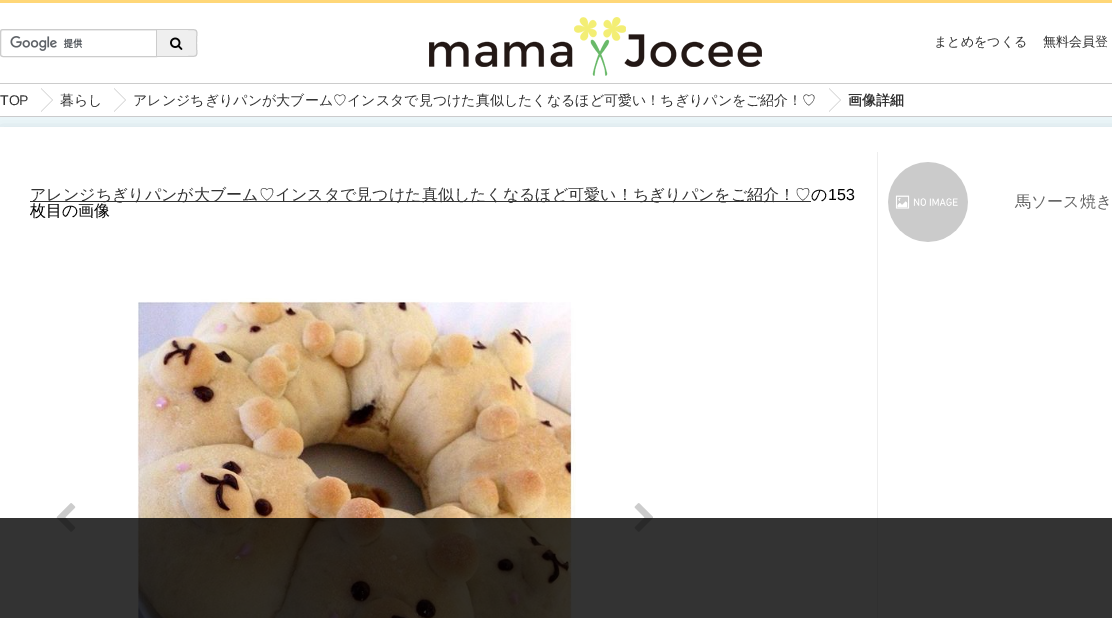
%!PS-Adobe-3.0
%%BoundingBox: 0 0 1112 618
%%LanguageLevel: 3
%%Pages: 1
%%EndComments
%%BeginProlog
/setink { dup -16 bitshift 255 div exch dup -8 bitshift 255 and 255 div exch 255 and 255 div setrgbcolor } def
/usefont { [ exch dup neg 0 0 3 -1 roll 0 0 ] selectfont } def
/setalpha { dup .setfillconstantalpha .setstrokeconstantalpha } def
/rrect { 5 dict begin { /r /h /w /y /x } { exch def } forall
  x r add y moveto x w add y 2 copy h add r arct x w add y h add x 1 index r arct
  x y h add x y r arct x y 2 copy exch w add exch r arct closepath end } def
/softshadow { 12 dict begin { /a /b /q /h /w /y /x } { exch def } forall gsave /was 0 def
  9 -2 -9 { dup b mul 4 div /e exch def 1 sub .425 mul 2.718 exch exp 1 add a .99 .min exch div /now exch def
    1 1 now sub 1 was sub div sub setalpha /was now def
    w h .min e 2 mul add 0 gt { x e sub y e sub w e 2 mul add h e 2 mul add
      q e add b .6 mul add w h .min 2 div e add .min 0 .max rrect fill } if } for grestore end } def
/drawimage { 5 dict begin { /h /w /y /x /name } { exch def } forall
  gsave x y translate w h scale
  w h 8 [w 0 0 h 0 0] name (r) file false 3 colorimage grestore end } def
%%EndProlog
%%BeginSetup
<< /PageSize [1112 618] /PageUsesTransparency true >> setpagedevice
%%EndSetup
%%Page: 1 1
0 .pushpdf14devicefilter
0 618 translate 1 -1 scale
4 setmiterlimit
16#ECF7F9 setink
0 0 1112 618 rectfill
[
    [0 3 1112 80 16#FFFFFF]
    [0 0 1112 3 16#FFD778]
    [0 83 1112 1 16#CCCCCC]
] { aload pop setink rectfill } forall
(img1.raw) 10 36 73 15 drawimage
16#F5F5F5 setink
3 31 moveto 156 31 lineto 156 30 lineto 3 30 lineto 1 30 1 32 1 33 curveto 1 32 2 31 3 31 curveto closepath fill
16#CCCCCC setink
3 29.5 moveto 156.5 29.5 lineto 156.5 56.5 lineto 3 56.5 lineto 1.5 56.5 0.5 55.5 0.5 54 curveto 0.5 32 lineto 0.5 30.5 1.5 29.5 3 29.5 curveto closepath stroke
16#EFEFEF setink
157 29 moveto 194 29 lineto 195.5 29 197 30.5 197 32 curveto 197 54 lineto 197 55.5 195.5 57 194 57 curveto 157 57 lineto closepath fill
16#CCCCCC setink
157 29 moveto 188 29 lineto 200 29 197 30 197 43 curveto 197 56 200 57 188 57 curveto 157 57 lineto closepath 157 30 moveto 188 30 lineto 199 30 196 30 196 43 curveto 196 56 199 56 188 56 curveto 157 56 lineto closepath eofill
(img2.raw) 170 37 13 13 drawimage
(img3.raw) 429 17 333 59 drawimage
/WenQuanYiZenHei-Medium 13 usefont
16#333333 setink
934 46 moveto (まとめをつくる) show
1043 46 moveto (無料会員登) show
16#FFFFFF setink
0 84 1112 32 rectfill
16#CCCCCC setink
0 116 1112 1 rectfill
41 112 moveto 41 88 lineto 53 100 lineto closepath fill
16#FFFFFF setink
39 113 moveto 39 87 lineto 52 100 lineto closepath fill
/LiberationSans-Regular 14 usefont
16#333333 setink
0 105 moveto (TOP) show
16#CCCCCC setink
114 112 moveto 114 88 lineto 126 100 lineto closepath fill
16#FFFFFF setink
112 113 moveto 112 87 lineto 125 100 lineto closepath fill
/WenQuanYiZenHei-Medium 14 usefont
16#333333 setink
60 105 moveto (暮らし) show
16#CCCCCC setink
829 112 moveto 829 88 lineto 841 100 lineto closepath fill
16#FFFFFF setink
827 113 moveto 827 87 lineto 840 100 lineto closepath fill
16#333333 setink
133 105 moveto (アレンジちぎりパンが大ブーム♡インスタで見つけた真似したくなるほど可愛い！ちぎりパンをご紹介！♡) show
/WenQuanYiZenHei-Bold 14 usefont
848 105 moveto (画像詳細) show
16#7187A4 setink
2 132 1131 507 0 7 0.5 softshadow
[
    [0 127 1112 491 16#FFFFFF]
    [877 152 1 466 16#EEEEEE]
    [30 201 781 1 16#333333]
] { aload pop setink rectfill } forall
/WenQuanYiZenHei-Medium 16 usefont
30 200 moveto (アレンジちぎりパンが大ブーム♡インスタで見つけた真似したくなるほど可愛い！ちぎりパンをご紹介！♡) show
16#000000 setink
811 200 moveto (の) show
/LiberationSans-Regular 16 usefont
828 200 moveto (153) show
/WenQuanYiZenHei-Medium 16 usefont
30 216 moveto (枚目の画像) show
(img4.raw) 56 503 20 29 drawimage
(img5.raw) 137 298 439 320 drawimage
(img6.raw) 634 503 19 29 drawimage
0.8 setalpha
0 518 1112 100 rectfill
1 setalpha
(img7.raw) 888 162 80 80 drawimage
16#666666 setink
1015 207 moveto (馬ソース焼き) show
.poppdf14devicefilter showpage
%%EOF
